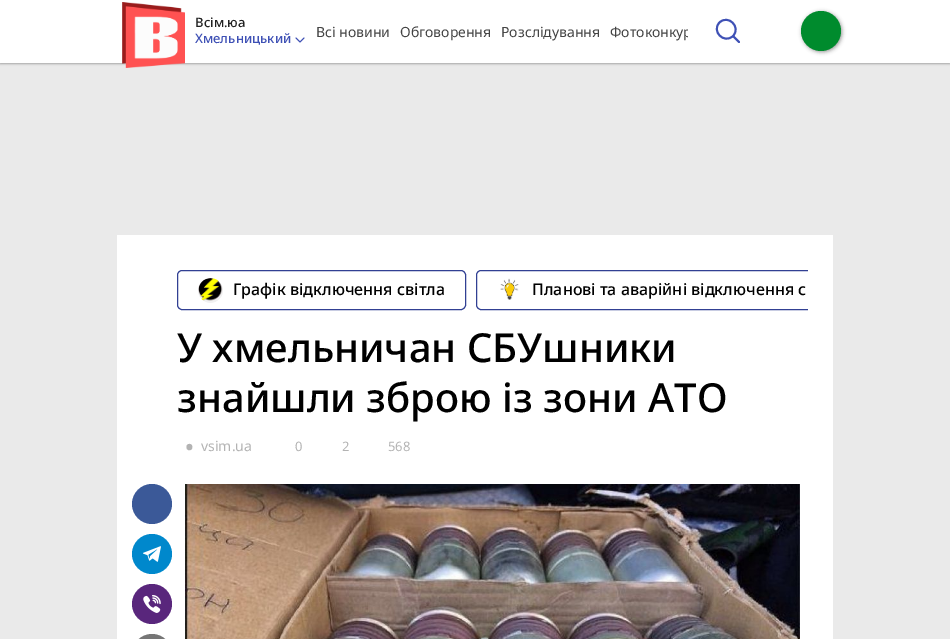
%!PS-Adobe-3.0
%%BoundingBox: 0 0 950 639
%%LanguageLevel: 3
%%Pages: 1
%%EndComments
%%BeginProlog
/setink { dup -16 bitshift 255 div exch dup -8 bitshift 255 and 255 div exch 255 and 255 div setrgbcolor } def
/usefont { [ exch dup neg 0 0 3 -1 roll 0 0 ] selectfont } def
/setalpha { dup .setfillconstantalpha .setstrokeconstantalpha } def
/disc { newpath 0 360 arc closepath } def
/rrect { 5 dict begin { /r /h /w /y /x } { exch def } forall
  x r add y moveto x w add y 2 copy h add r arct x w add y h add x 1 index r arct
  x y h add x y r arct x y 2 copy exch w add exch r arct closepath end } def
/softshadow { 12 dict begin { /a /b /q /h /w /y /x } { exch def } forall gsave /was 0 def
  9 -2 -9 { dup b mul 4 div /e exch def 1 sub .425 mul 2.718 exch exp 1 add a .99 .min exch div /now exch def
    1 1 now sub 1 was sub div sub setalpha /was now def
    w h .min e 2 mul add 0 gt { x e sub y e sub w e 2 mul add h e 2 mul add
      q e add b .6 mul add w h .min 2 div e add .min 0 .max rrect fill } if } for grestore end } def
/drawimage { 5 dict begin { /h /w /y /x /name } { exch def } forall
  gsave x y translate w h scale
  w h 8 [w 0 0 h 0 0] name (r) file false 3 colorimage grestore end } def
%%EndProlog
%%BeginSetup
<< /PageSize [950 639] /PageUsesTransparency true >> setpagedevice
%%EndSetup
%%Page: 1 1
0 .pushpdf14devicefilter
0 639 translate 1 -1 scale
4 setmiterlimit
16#EAEAEA setink
0 0 950 639 rectfill
16#000000 setink
0 1 950 63 0 1 0.3 softshadow
16#FFFFFF setink
0 0 950 63 rectfill
(img1.raw) 122 2 63 66 drawimage
/NotoSans-Medium 13 usefont
16#212121 setink
195 27 moveto (Всім.юа) show
16#3F51B5 setink
195 43 moveto (Хмельницький) show
0.8 setlinewidth
1 setlinecap
1 setlinejoin
304 38 moveto 300 42 lineto 296 38 lineto stroke
/NotoSans-Regular 14 usefont
16#444444 setink
[
    [(Всі новини) 316 37]
    [(Обговорення) 400 37]
    [(Розслідування) 501 37]
] { aload pop moveto show } forall
gsave
311 0 377 63 rectclip
610 37 moveto (Фотоконкур) show
grestore
16#3F51B5 setink
1.9 setlinewidth
739 42 moveto 733 36 lineto 733 36 moveto 741.5 27 728 14 719.5 22.5 curveto 711 31 724 44.5 733 36 curveto closepath stroke
16#000000 setink
802 12 40 40 20 2 0.4 softshadow
16#008B2D setink
821 31 20 disc fill
16#FFFFFF setink
117 235 716 404 rectfill
16#314093 setink
1 setlinewidth
0 setlinecap
0 setlinejoin
177.5 270.5 288 39 4.5 rrect stroke
(img2.raw) 198 278 25 25 drawimage
/NotoSans-Medium 16 usefont
16#000000 setink
233 295 moveto (Графік відключення світла) show
gsave
177 270 631 52 rectclip
16#314093 setink
476.5 270.5 390 39 4.5 rrect stroke
grestore
(img3.raw) 500 278 19 22 drawimage
532 295 moveto (Планові та аварійні відключення с) show
/NotoSans-Medium 40 usefont
177 362 moveto (У хмельничан СБУшники) show
177 412 moveto (знайшли зброю із зони АТО) show
/NotoSans-Regular 48 usefont
16#B3B3B3 setink
183 464 moveto (·) show
/NotoSans-Regular 14 usefont
201 451 moveto (vsim.ua) show
/NotoSans-Regular 13 usefont
[
    [(0) 295 451]
    [(2) 342 451]
    [(568) 388 451]
] { aload pop moveto show } forall
16#3B5998 setink
152 504 20 disc fill
16#0088CC setink
152 554 20 disc fill
(img4.raw) 143 546 18 16 drawimage
16#59267C setink
152 604 20 disc fill
(img5.raw) 143 595 18 18 drawimage
16#767676 setink
132 634 40 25 20 rrect fill
(img6.raw) 185 484 615 155 drawimage
.poppdf14devicefilter showpage
%%EOF
